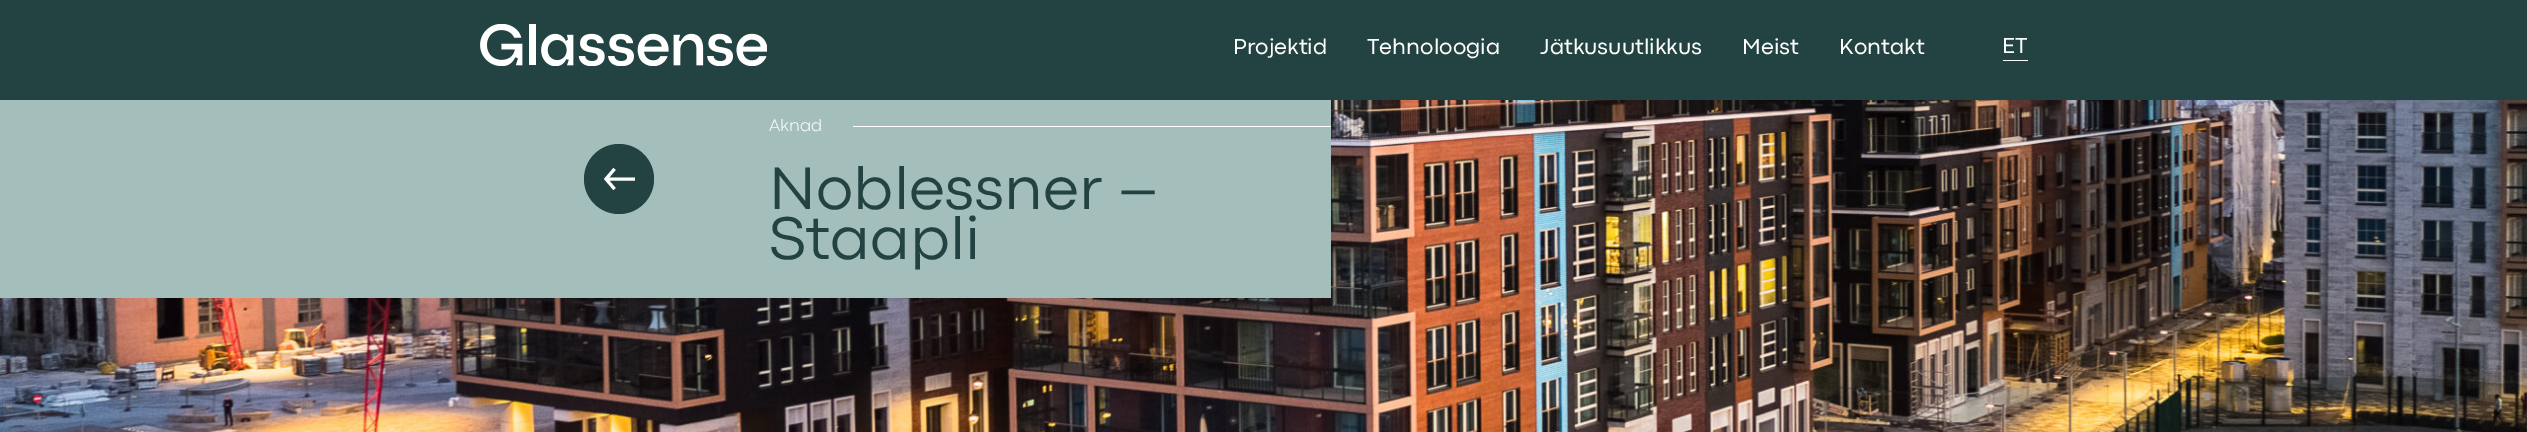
%!PS-Adobe-3.0
%%BoundingBox: 0 0 2527 432
%%LanguageLevel: 3
%%Pages: 1
%%EndComments
%%BeginProlog
/setink { dup -16 bitshift 255 div exch dup -8 bitshift 255 and 255 div exch 255 and 255 div setrgbcolor } def
/usefont { [ exch dup neg 0 0 3 -1 roll 0 0 ] selectfont } def
/disc { newpath 0 360 arc closepath } def
/drawimage { 5 dict begin { /h /w /y /x /name } { exch def } forall
  gsave x y translate w h scale
  w h 8 [w 0 0 h 0 0] name (r) file false 3 colorimage grestore end } def
%%EndProlog
%%BeginSetup
<< /PageSize [2527 432] >> setpagedevice
%%EndSetup
%%Page: 1 1
0 432 translate 1 -1 scale
4 setmiterlimit
16#FFFFFF setink
0 0 2527 432 rectfill
16#224342 setink
0 0 2527 100 rectfill
(img1.raw) 480 24 287 42 drawimage
/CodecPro-Regular 22.5 usefont
16#FFFFFF setink
[
    [(Projektid) 1233 54]
    [(Tehnoloogia) 1367 54]
    [(Jätkusuutlikkus) 1540 54]
    [(Meist) 1742 54]
    [(Kontakt) 1839 54]
] { aload pop moveto show } forall
2003 60 25 1 rectfill
2002 53 moveto (ET) show
(img2.raw) 0 100 2527 332 drawimage
16#A3BEBB setink
0 100 1331 198 rectfill
16#224342 setink
619 179 35 disc fill
16#FFFFFF setink
3 setlinewidth
614.5 169 moveto 606 179 lineto 614.5 189 lineto 605.5 179 moveto 635 179 lineto stroke
/CodecPro-Light 17.5 usefont
769 131 moveto (Aknad) show
853 126 478 1 rectfill
/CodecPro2-Light 62.5 usefont
16#224342 setink
769 209 moveto (Noblessner –) show
769 259 moveto (Staapli) show
showpage
%%EOF
